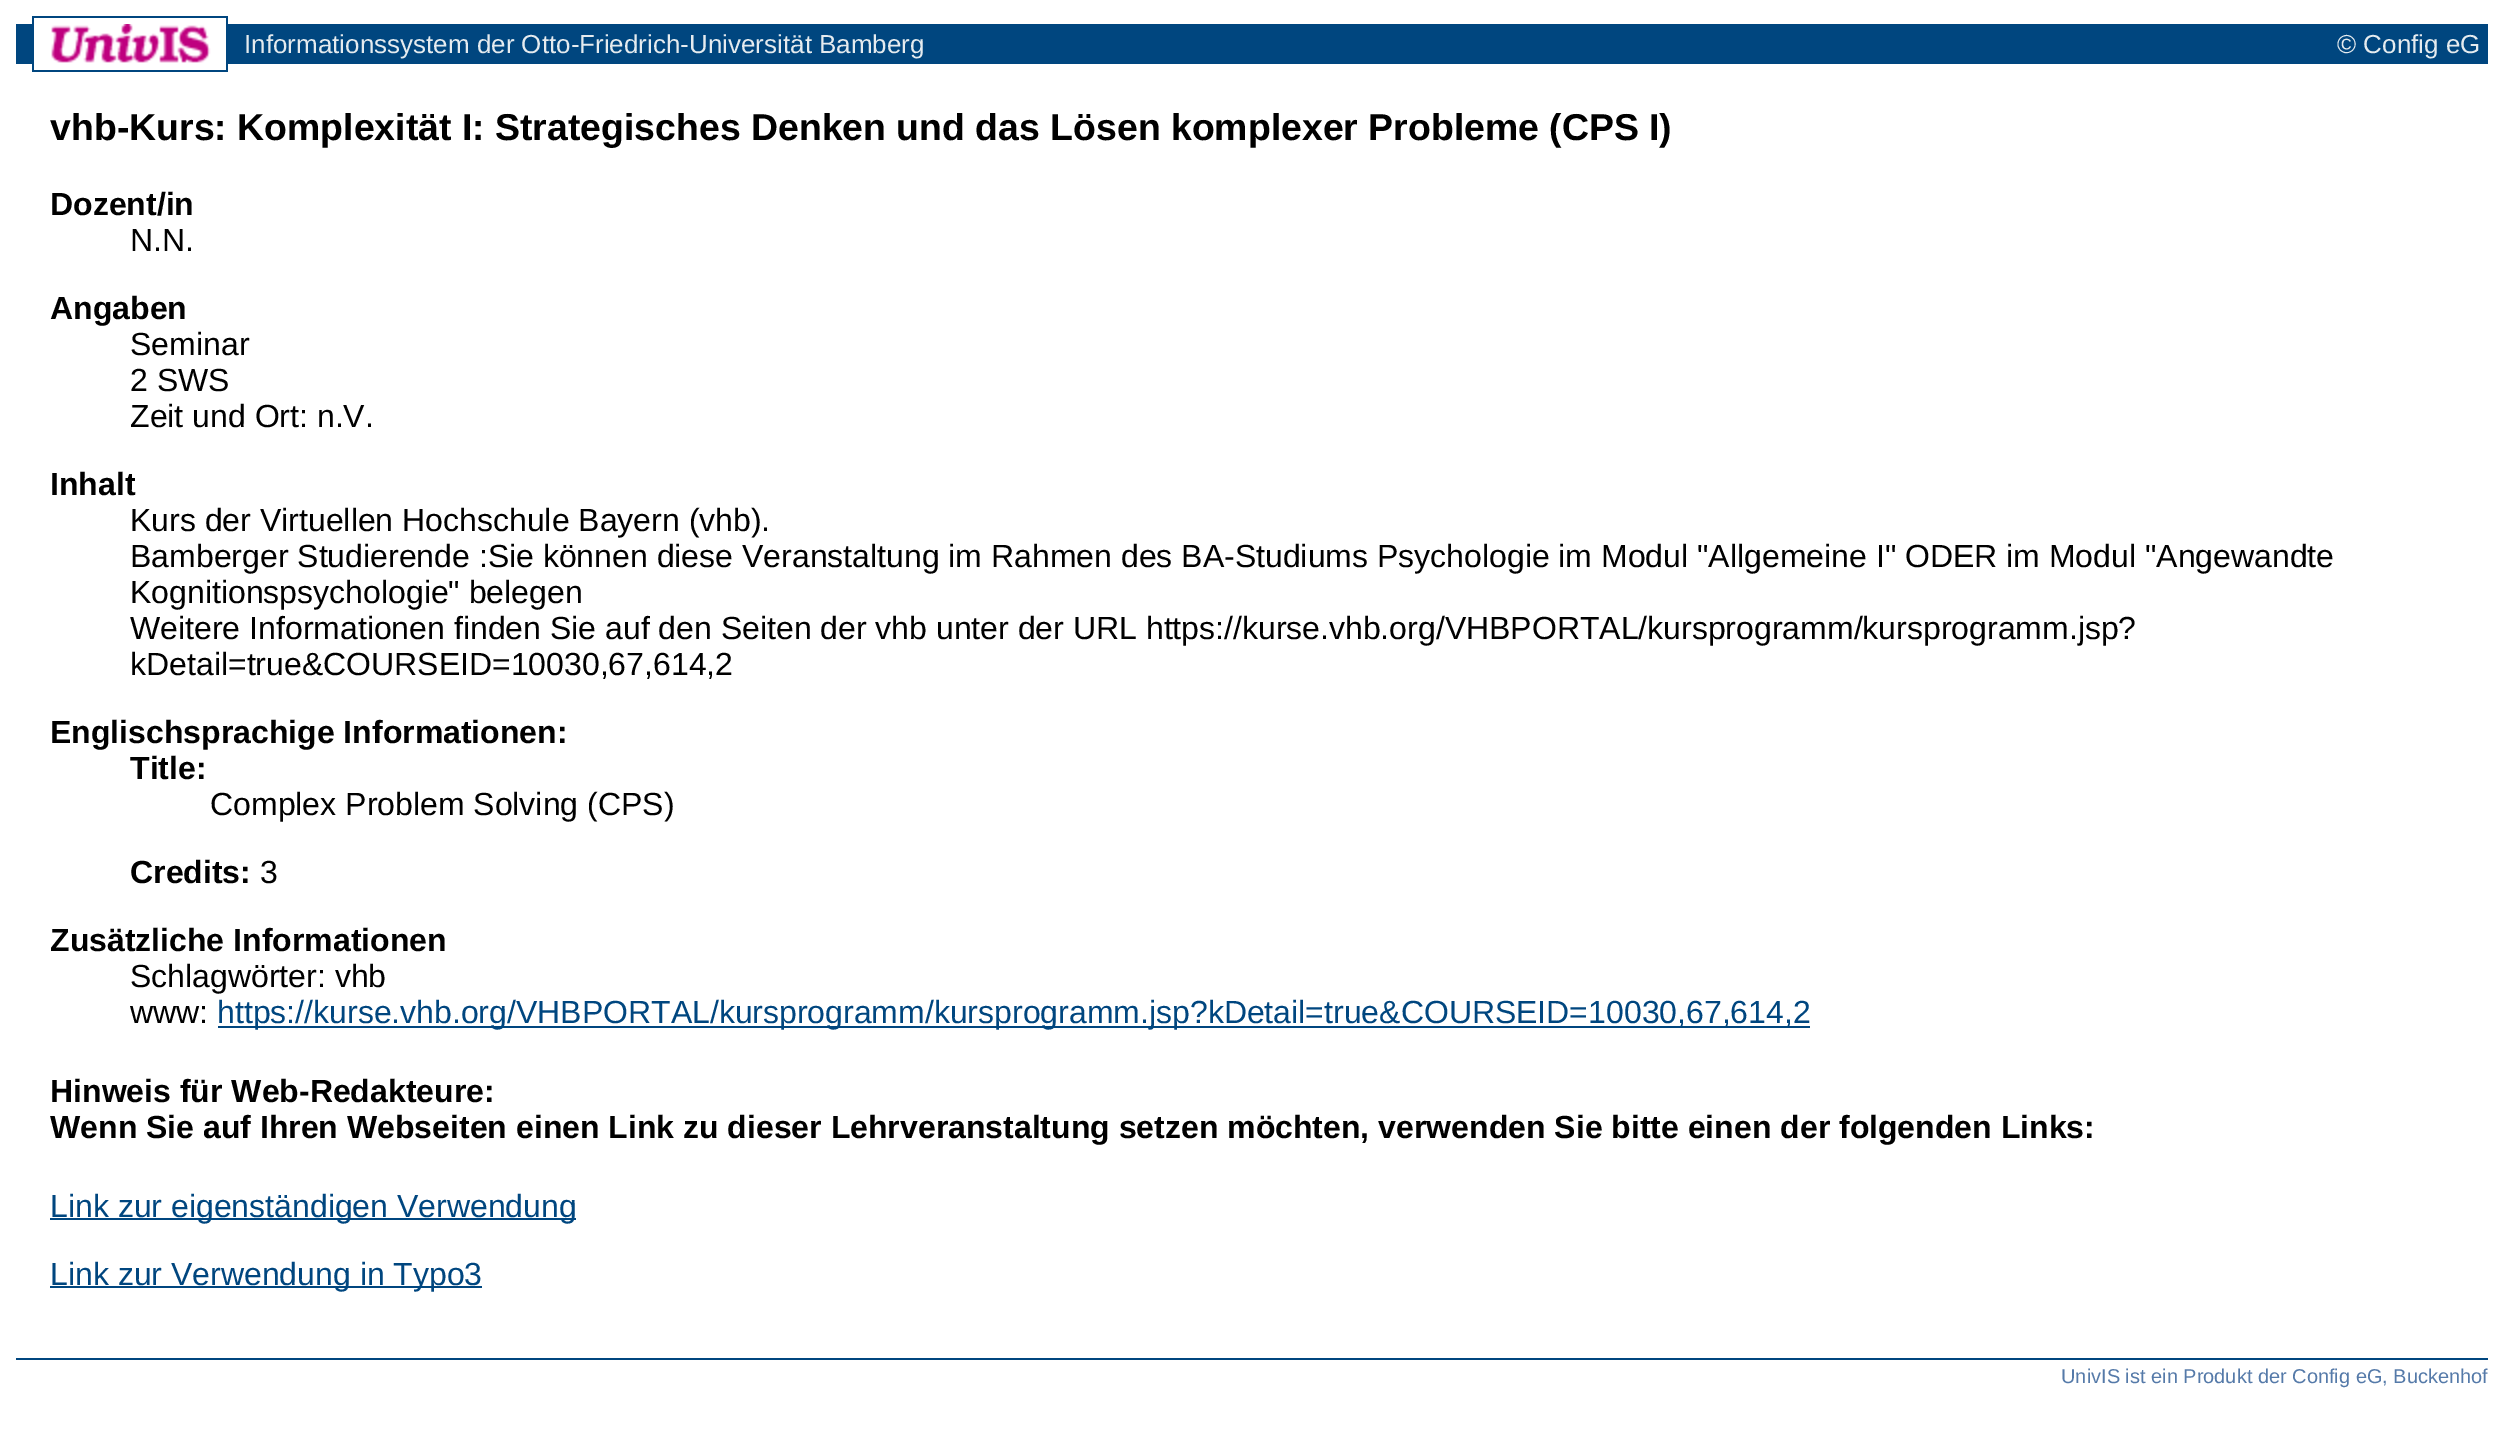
%!PS-Adobe-3.0
%%BoundingBox: 0 0 2503 1451
%%LanguageLevel: 3
%%Pages: 1
%%EndComments
%%BeginProlog
/setink { dup -16 bitshift 255 div exch dup -8 bitshift 255 and 255 div exch 255 and 255 div setrgbcolor } def
/usefont { [ exch dup neg 0 0 3 -1 roll 0 0 ] selectfont } def
/drawimage { 5 dict begin { /h /w /y /x /name } { exch def } forall
  gsave x y translate w h scale
  w h 8 [w 0 0 h 0 0] name (r) file false 3 colorimage grestore end } def
%%EndProlog
%%BeginSetup
<< /PageSize [2503 1451] >> setpagedevice
%%EndSetup
%%Page: 1 1
0 1451 translate 1 -1 scale
4 setmiterlimit
16#FFFFFF setink
0 0 2503 1451 rectfill
[
    [32 16 196 2 16#00467F]
    [32 18 2 6 16#00467F]
    [226 18 2 52 16#00467F]
    [16 24 18 40 16#00467F]
] { aload pop setink rectfill } forall
(img1.raw) 51 24 160 39 drawimage
228 24 2260 40 rectfill
/LiberationSans-Regular 26 usefont
16#E5EBEF setink
244 53 moveto (Informationssystem der Otto-Friedrich-Universität Bamberg) show
2337 53 moveto (© Config eG) show
16#00467F setink
32 64 2 8 rectfill
34 70 194 2 rectfill
/LiberationSans-Bold 37.45 usefont
16#000000 setink
50 140 moveto -0.1 0 32 (vhb-Kurs: Komplexität I: Strategisches Denken und das Lösen komplexer Probleme \(CPS I\)) widthshow
/LiberationSans-Bold 32 usefont
50 215 moveto (Dozent/in) show
/LiberationSans-Regular 32 usefont
130 251 moveto (N.N.) show
/LiberationSans-Bold 32 usefont
50 319 moveto (Angaben) show
/LiberationSans-Regular 32 usefont
[
    [(Seminar) 130 355]
    [(2 SWS) 130 391]
    [(Zeit und Ort: n.V.) 130 427]
] { aload pop moveto show } forall
/LiberationSans-Bold 32 usefont
50 495 moveto (Inhalt) show
/LiberationSans-Regular 32 usefont
[
    [(Kurs der Virtuellen Hochschule Bayern \(vhb\).) 130 531]
    [(Bamberger Studierende :Sie können diese Veranstaltung im Rahmen des BA-Studiums Psychologie im Modul "Allgemeine I" ODER im Modul "Angewandte) 130 567]
    [(Kognitionspsychologie" belegen) 130 603]
    [(Weitere Informationen finden Sie auf den Seiten der vhb unter der URL https://kurse.vhb.org/VHBPORTAL/kursprogramm/kursprogramm.jsp?) 130 639]
    [(kDetail=true&COURSEID=10030,67,614,2) 130 675]
] { aload pop moveto show } forall
/LiberationSans-Bold 32 usefont
50 743 moveto (Englischsprachige Informationen:) show
130 779 moveto (Title:) show
/LiberationSans-Regular 32 usefont
210 815 moveto (Complex Problem Solving \(CPS\)) show
/LiberationSans-Bold 32 usefont
130 883 moveto (Credits:) show
/LiberationSans-Regular 32 usefont
260 883 moveto (3) show
/LiberationSans-Bold 32 usefont
50 951 moveto (Zusätzliche Informationen) show
/LiberationSans-Regular 32 usefont
130 987 moveto (Schlagwörter: vhb) show
130 1023 moveto (www:) show
16#00467F setink
218 1026 1592 2 rectfill
217 1023 moveto (https://kurse.vhb.org/VHBPORTAL/kursprogramm/kursprogramm.jsp?kDetail=true&COURSEID=10030,67,614,2) show
/LiberationSans-Bold 32 usefont
16#000000 setink
50 1102 moveto (Hinweis für Web-Redakteure:) show
50 1138 moveto (Wenn Sie auf Ihren Webseiten einen Link zu dieser Lehrveranstaltung setzen möchten, verwenden Sie bitte einen der folgenden Links:) show
16#00467F setink
50 1218 526 2 rectfill
/LiberationSans-Regular 32 usefont
50 1217 moveto (Link zur eigenständigen Verwendung) show
50 1286 432 2 rectfill
50 1285 moveto (Link zur Verwendung in Typo3) show
16 1358 2472 2 rectfill
/LiberationSans-Regular 20 usefont
16#557AA9 setink
2061 1383 moveto (UnivIS ist ein Produkt der Config eG, Buckenhof) show
showpage
%%EOF
